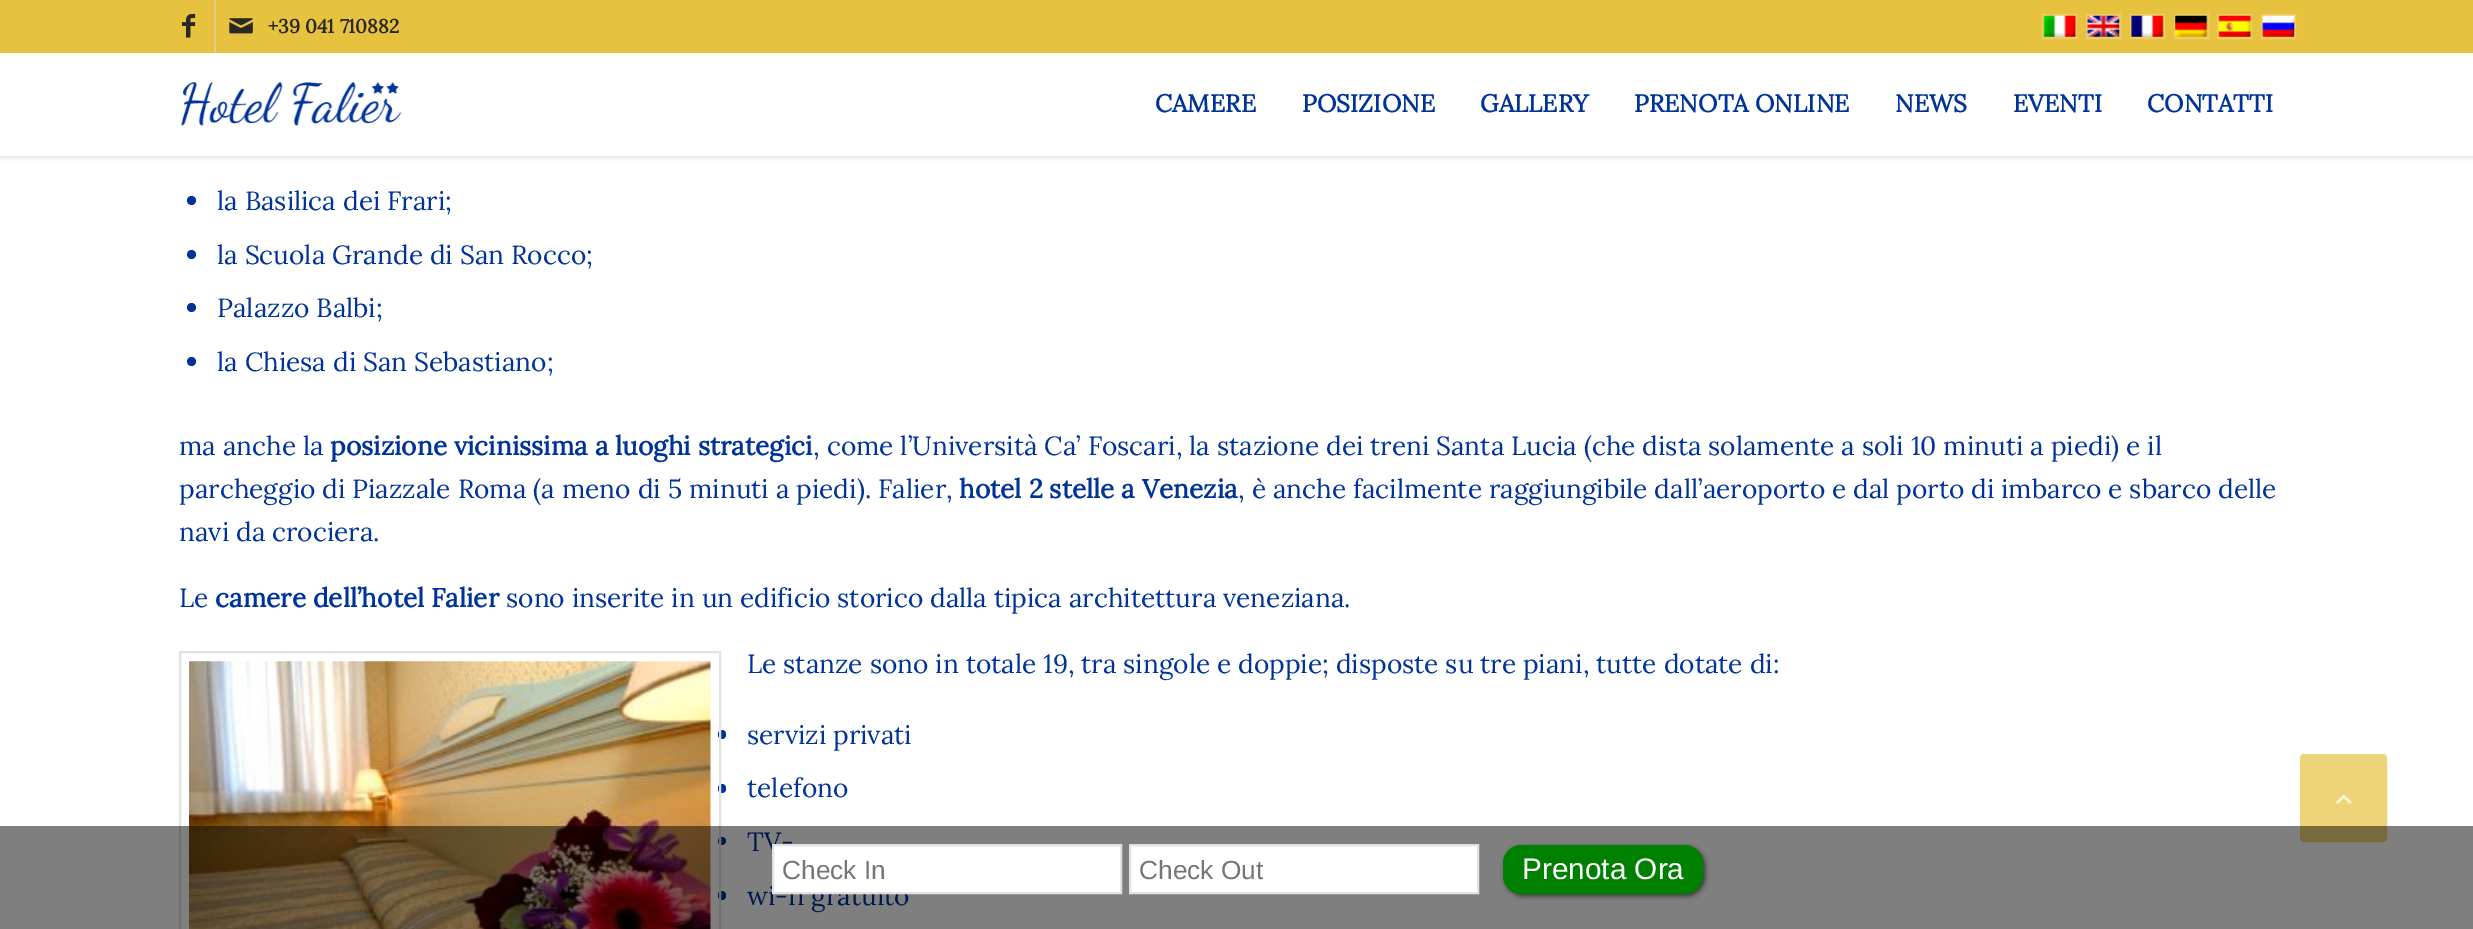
%!PS-Adobe-3.0
%%BoundingBox: 0 0 2473 929
%%LanguageLevel: 3
%%Pages: 1
%%EndComments
%%BeginProlog
/setink { dup -16 bitshift 255 div exch dup -8 bitshift 255 and 255 div exch 255 and 255 div setrgbcolor } def
/usefont { [ exch dup neg 0 0 3 -1 roll 0 0 ] selectfont } def
/setalpha { dup .setfillconstantalpha .setstrokeconstantalpha } def
/disc { newpath 0 360 arc closepath } def
/rrect { 5 dict begin { /r /h /w /y /x } { exch def } forall
  x r add y moveto x w add y 2 copy h add r arct x w add y h add x 1 index r arct
  x y h add x y r arct x y 2 copy exch w add exch r arct closepath end } def
/softshadow { 12 dict begin { /a /b /q /h /w /y /x } { exch def } forall gsave /was 0 def
  9 -2 -9 { dup b mul 4 div /e exch def 1 sub .425 mul 2.718 exch exp 1 add a .99 .min exch div /now exch def
    1 1 now sub 1 was sub div sub setalpha /was now def
    w h .min e 2 mul add 0 gt { x e sub y e sub w e 2 mul add h e 2 mul add
      q e add b .6 mul add w h .min 2 div e add .min 0 .max rrect fill } if } for grestore end } def
/drawimage { 5 dict begin { /h /w /y /x /name } { exch def } forall
  gsave x y translate w h scale
  w h 8 [w 0 0 h 0 0] name (r) file false 3 colorimage grestore end } def
%%EndProlog
%%BeginSetup
<< /PageSize [2473 929] /PageUsesTransparency true >> setpagedevice
%%EndSetup
%%Page: 1 1
0 .pushpdf14devicefilter
0 929 translate 1 -1 scale
4 setmiterlimit
16#FFFFFF setink
0 0 2473 929 rectfill
16#000000 setink
-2 -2 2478 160 0 2 0.1 softshadow
16#E7C23E setink
0 0 2473 53 rectfill
16#E1CD83 setink
214 0 2 53 rectfill
(img1.raw) 182 14 14 24 drawimage
(img2.raw) 229 18 24 16 drawimage
/Lora-Bold 19.25 usefont
16#292824 setink
268 33 moveto (+39 041 710882) show
16#ECCE65 setink
2 setlinewidth
2043 15 33 23 rectstroke
(img3.raw) 2043 15 34 22 drawimage
2087 15 33 23 rectstroke
(img4.raw) 2087 15 33 22 drawimage
2131 15 33 23 rectstroke
(img5.raw) 2131 15 33 22 drawimage
2175 15 33 23 rectstroke
(img6.raw) 2175 15 33 22 drawimage
2218 15 33 23 rectstroke
(img7.raw) 2218 15 34 22 drawimage
2262 15 33 23 rectstroke
(img8.raw) 2262 15 33 22 drawimage
16#FFFFFF setink
0 53 2473 103 rectfill
(img9.raw) 181 82 221 44 drawimage
/Lora-Bold 24.5 usefont
16#003399 setink
[
    [(CAMERE) 1155 112]
    [(POSIZIONE) 1302 112]
    [(GALLERY) 1480 112]
    [(PRENOTA ONLINE) 1634 112]
    [(NEWS) 1895 112]
    [(EVENTI) 2013 112]
    [(CONTATTI) 2147 112]
] { aload pop moveto show } forall
191.5 200.5 4.5 disc fill
/Lora-Regular 26.25 usefont
217 210 moveto (la Basilica dei Frari;) show
191.5 254.5 4.5 disc fill
217 264 moveto (la Scuola Grande di San Rocco;) show
191.5 307.5 4.5 disc fill
217 317 moveto (Palazzo Balbi;) show
191.5 361.5 4.5 disc fill
217 371 moveto (la Chiesa di San Sebastiano;) show
179 455 moveto (ma anche la) show
/Lora-Bold 26.25 usefont
330 455 moveto (posizione vicinissima a luoghi strategici) show
/Lora-Regular 26.25 usefont
813 455 moveto (, come l’Università Ca’ Foscari, la stazione dei treni Santa Lucia \(che dista solamente a soli 10 minuti a piedi\) e il) show
179 498 moveto (parcheggio di Piazzale Roma \(a meno di 5 minuti a piedi\). Falier,) show
/Lora-Bold 26.25 usefont
959 498 moveto (hotel 2 stelle a Venezia) show
/Lora-Regular 26.25 usefont
[
    [(, è anche facilmente raggiungibile dall’aeroporto e dal porto di imbarco e sbarco delle) 1238 498]
    [(navi da crociera.) 179 541]
    [(Le) 179 607]
] { aload pop moveto show } forall
/Lora-Bold 26.25 usefont
215 607 moveto (camere dell’hotel Falier) show
/Lora-Regular 26.25 usefont
506 607 moveto (sono inserite in un edificio storico dalla tipica architettura veneziana.) show
718 730 8 9 4 rrect fill
718 784 8 9 4 rrect fill
722 841 4 disc fill
718 891 8 9 4 rrect fill
16#E1E1E1 setink
180 652 540 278 rectstroke
(img10.raw) 189 661 522 268 drawimage
16#003399 setink
[
    [(Le stanze sono in totale 19, tra singole e doppie; disposte su tre piani, tutte dotate di:) 747 673]
    [(servizi privati) 747 744]
    [(telefono) 747 797]
    [(TV-) 747 851]
    [(wi-fi gratuito) 747 905]
] { aload pop moveto show } forall
16#EED478 setink
2301 755 85 86 3 rrect gsave fill grestore
stroke
(img11.raw) 2336 794 16 10 drawimage
0.5 setalpha
16#000000 setink
0 826 2473 103 rectfill
1 setalpha
16#FFFFFF setink
773 845 moveto 1121 845 lineto 1121 893 lineto 773 893 lineto closepath gsave fill grestore
16#E1E1E1 setink
stroke
/LiberationSans-Regular 26.25 usefont
16#757575 setink
782 879 moveto (Check In) show
16#FFFFFF setink
1130 845 moveto 1478 845 lineto 1478 893 lineto 1130 893 lineto closepath gsave fill grestore
16#E1E1E1 setink
stroke
16#757575 setink
1139 879 moveto (Check Out) show
16#333333 setink
1505 847 200 49 18 2.5 1 softshadow
16#008000 setink
1504 846 198 47 17 rrect gsave fill grestore
stroke
/LiberationSans-Regular 29.75 usefont
16#FFFFFF setink
1522 879 moveto (Prenota Ora) show
.poppdf14devicefilter showpage
%%EOF
